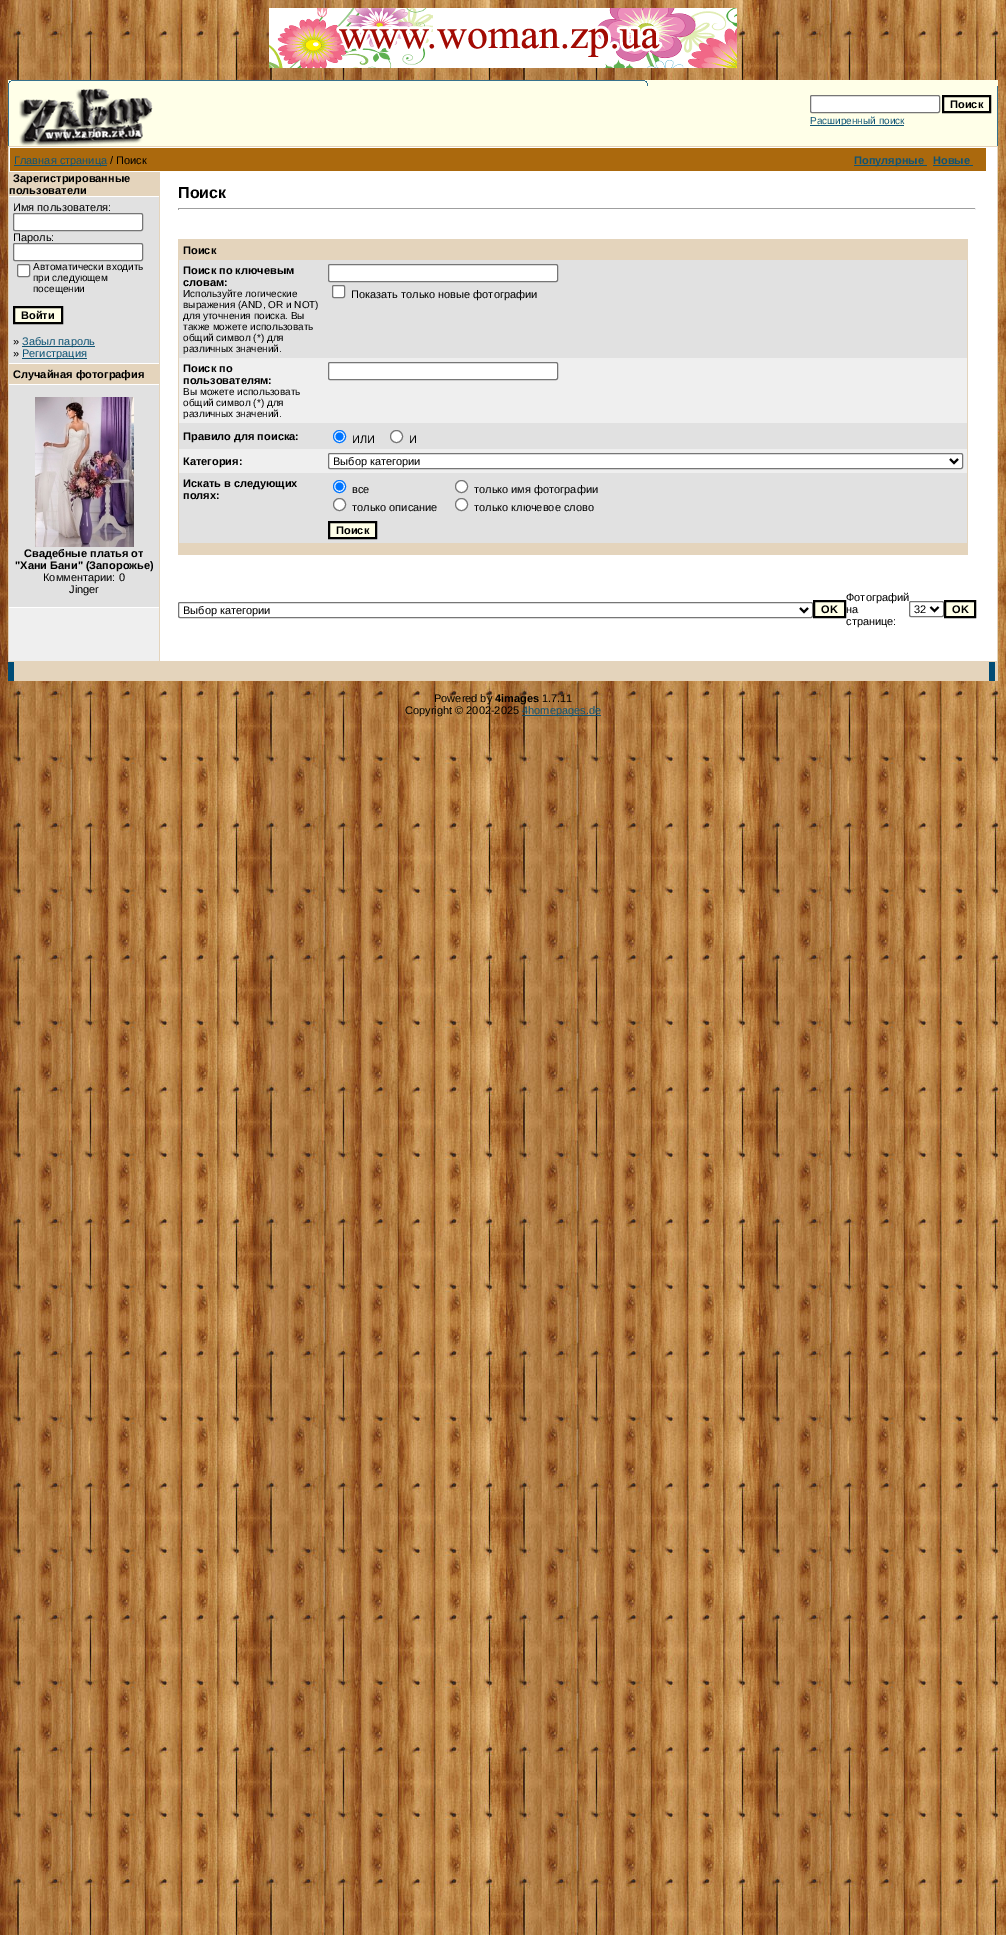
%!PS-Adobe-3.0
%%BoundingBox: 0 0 1006 1935
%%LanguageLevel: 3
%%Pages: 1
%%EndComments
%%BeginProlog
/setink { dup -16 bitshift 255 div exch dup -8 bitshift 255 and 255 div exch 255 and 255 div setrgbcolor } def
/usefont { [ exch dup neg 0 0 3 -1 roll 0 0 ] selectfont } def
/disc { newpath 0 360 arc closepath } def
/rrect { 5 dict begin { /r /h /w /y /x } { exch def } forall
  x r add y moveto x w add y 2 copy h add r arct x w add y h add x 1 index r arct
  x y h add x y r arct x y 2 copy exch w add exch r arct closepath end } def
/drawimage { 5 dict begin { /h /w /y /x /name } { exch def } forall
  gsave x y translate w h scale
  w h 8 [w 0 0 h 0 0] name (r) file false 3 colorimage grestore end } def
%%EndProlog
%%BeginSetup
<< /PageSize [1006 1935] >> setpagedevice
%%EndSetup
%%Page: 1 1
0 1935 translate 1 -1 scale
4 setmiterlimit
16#FFFFFF setink
0 0 1006 1935 rectfill
(img1.raw) 0 0 1006 1935 drawimage
(img2.raw) 269 8 468 60 drawimage
16#FFFFE8 setink
8 80 990 66 rectfill
(img3.raw) 8 80 640 6 drawimage
16#36728D setink
8 86 1 60 rectfill
(img4.raw) 19 88 134 58 drawimage
16#FFFFFF setink
810.5 95.5 129 17 1.5 rrect gsave fill grestore
16#767676 setink
stroke
16#000000 setink
2 setlinewidth
943 96 47 16 rectstroke
/LiberationSans-Bold 11 usefont
950 108 moveto (Поиск) show
16#0F5475 setink
810 125 94 1 rectfill
/LiberationSans-Regular 10 usefont
810 124 moveto (Расширенный поиск) show
[
    [997 86 1 60 16#36728D]
    [8 146 990 516 16#E4D4BC]
    [9 147 988 514 16#FFFFFF]
    [10 148 976 23 16#AB690D]
    [14 165 93 1 16#0F5475]
] { aload pop setink rectfill } forall
/LiberationSans-Regular 11 usefont
14 164 moveto (Главная страница) show
16#000000 setink
110 164 moveto (/ Поиск) show
16#0F5475 setink
854 165 73 1 rectfill
/LiberationSans-Bold 11 usefont
854 164 moveto (Популярные) show
933 164 moveto (Новые) show
[
    [933 165 40 1 16#0F5475]
    [9 608 150 53 16#EFEFEF]
    [9 172 150 24 16#E4D4BC]
] { aload pop setink rectfill } forall
16#000000 setink
13 182 moveto (Зарегистрированные) show
9 194 moveto (пользователи) show
16#E1E1E1 setink
9 197 150 166 rectfill
/LiberationSans-Regular 11 usefont
16#000000 setink
13 211 moveto (Имя пользователя:) show
16#FFFFFF setink
13.5 213.5 129 17 1.5 rrect gsave fill grestore
16#767676 setink
1 setlinewidth
stroke
16#000000 setink
13 241 moveto (Пароль:) show
16#FFFFFF setink
13.5 243.5 129 17 1.5 rrect gsave fill grestore
16#767676 setink
stroke
16#FFFFFF setink
17.5 264.5 12 12 1.5 rrect gsave fill grestore
16#767676 setink
stroke
/LiberationSans-Regular 10 usefont
16#000000 setink
[
    [(Автоматически входить) 33 270]
    [(при следующем) 33 281]
    [(посещении) 33 292]
] { aload pop moveto show } forall
16#FFFFE8 setink
14 307 moveto 62 307 lineto 62 323 lineto 14 323 lineto closepath gsave fill grestore
16#000000 setink
2 setlinewidth
stroke
/LiberationSans-Bold 11 usefont
21 319 moveto (Войти) show
/LiberationSans-Regular 11 usefont
13 345 moveto (») show
16#0F5475 setink
22 346 73 1 rectfill
22 345 moveto (Забыл пароль) show
16#000000 setink
13 357 moveto (») show
16#0F5475 setink
22 358 65 1 rectfill
22 357 moveto (Регистрация) show
16#E4D4BC setink
9 364 150 20 rectfill
/LiberationSans-Bold 11 usefont
16#000000 setink
13 378 moveto (Случайная фотография) show
16#E1E1E1 setink
9 385 150 222 rectfill
(img5.raw) 35 397 99 150 drawimage
16#000000 setink
24 557 moveto (Свадебные платья от) show
15 569 moveto ("Хани Бани" \(Запорожье\)) show
/LiberationSans-Regular 11 usefont
43 581 moveto (Комментарии: 0) show
69 593 moveto (Jinger) show
16#E4D4BC setink
159 172 1 489 rectfill
/LiberationSans-Bold 16 usefont
16#000000 setink
178 198 moveto (Поиск) show
[
    [178 208 798 1 16#9F9F9F]
    [975 208 1 2 16#EEEEEE]
    [178 208 1 2 16#9F9F9F]
    [178 239 790 316 16#E4D4BC]
] { aload pop setink rectfill } forall
/LiberationSans-Bold 11 usefont
16#000000 setink
183 254 moveto (Поиск) show
16#E1E1E1 setink
179 260 788 98 rectfill
16#000000 setink
183 274 moveto (Поиск по ключевым) show
183 286 moveto (словам:) show
/LiberationSans-Regular 10 usefont
[
    [(Используйте логические) 183 297]
    [(выражения \(AND, OR и NOT\)) 183 308]
    [(для уточнения поиска. Вы) 183 319]
    [(также можете использовать) 183 330]
    [(общий символ \(*\) для) 183 341]
    [(различных значений.) 183 352]
] { aload pop moveto show } forall
16#FFFFFF setink
328.5 264.5 229 17 1.5 rrect gsave fill grestore
16#767676 setink
1 setlinewidth
stroke
16#FFFFFF setink
332.5 285.5 12 12 1.5 rrect gsave fill grestore
16#767676 setink
stroke
/LiberationSans-Regular 11 usefont
16#000000 setink
351 298 moveto (Показать только новые фотографии) show
16#EFEFEF setink
179 358 788 65 rectfill
/LiberationSans-Bold 11 usefont
16#000000 setink
183 372 moveto (Поиск по) show
183 384 moveto (пользователям:) show
/LiberationSans-Regular 10 usefont
[
    [(Вы можете использовать) 183 395]
    [(общий символ \(*\) для) 183 406]
    [(различных значений.) 183 417]
] { aload pop moveto show } forall
16#FFFFFF setink
328.5 362.5 229 17 1.5 rrect gsave fill grestore
16#767676 setink
stroke
16#E1E1E1 setink
179 423 788 26 rectfill
/LiberationSans-Bold 11 usefont
16#000000 setink
183 440 moveto (Правило для поиска:) show
16#FFFFFF setink
339.5 436.5 6 disc gsave fill grestore
16#0075FF setink
stroke
339.5 436.5 4 disc fill
/LiberationSans-Regular 11 usefont
16#000000 setink
352 443 moveto (ИЛИ) show
16#FFFFFF setink
396.5 436.5 6 disc gsave fill grestore
16#767676 setink
stroke
16#000000 setink
409 443 moveto (И) show
16#EFEFEF setink
179 449 788 24 rectfill
/LiberationSans-Bold 11 usefont
16#000000 setink
183 465 moveto (Категория:) show
16#FFFFFF setink
328.5 453.5 634 15 1.5 rrect gsave fill grestore
16#767676 setink
stroke
16#000000 setink
2 setlinewidth
950 459 moveto 954 463 lineto 958 459 lineto stroke
/LiberationSans-Regular 11 usefont
333 465 moveto (Выбор категории) show
16#E1E1E1 setink
179 473 788 44 rectfill
/LiberationSans-Bold 11 usefont
16#000000 setink
183 487 moveto (Искать в следующих) show
183 499 moveto (полях:) show
16#FFFFFF setink
339.5 486.5 6 disc gsave fill grestore
16#0075FF setink
1 setlinewidth
stroke
339.5 486.5 4 disc fill
/LiberationSans-Regular 11 usefont
16#000000 setink
352 493 moveto (все) show
16#FFFFFF setink
461.5 486.5 6 disc gsave fill grestore
16#767676 setink
stroke
16#000000 setink
474 493 moveto (только имя фотографии) show
16#FFFFFF setink
339.5 504.5 6 disc gsave fill grestore
16#767676 setink
stroke
16#000000 setink
352 511 moveto (только описание) show
16#FFFFFF setink
461.5 504.5 6 disc gsave fill grestore
16#767676 setink
stroke
16#000000 setink
474 511 moveto (только ключевое слово) show
16#E1E1E1 setink
179 517 788 26 rectfill
16#FFFFE8 setink
329 522 moveto 376 522 lineto 376 538 lineto 329 538 lineto closepath gsave fill grestore
16#000000 setink
2 setlinewidth
stroke
/LiberationSans-Bold 11 usefont
336 534 moveto (Поиск) show
16#767676 setink
1 setlinewidth
178.5 602.5 634 15 1.5 rrect stroke
16#000000 setink
2 setlinewidth
800 608 moveto 804 612 lineto 808 608 lineto stroke
/LiberationSans-Regular 11 usefont
183 614 moveto (Выбор категории) show
16#FFFFE8 setink
814 601 moveto 845 601 lineto 845 617 lineto 814 617 lineto closepath gsave fill grestore
16#000000 setink
stroke
/LiberationSans-Bold 11 usefont
821 613 moveto (OK) show
/LiberationSans-Regular 11 usefont
[
    [(Фотографий) 846 601]
    [(на) 846 613]
    [(странице:) 846 625]
] { aload pop moveto show } forall
16#767676 setink
1 setlinewidth
909.5 601.5 34 15 1.5 rrect stroke
16#000000 setink
2 setlinewidth
930.5 607 moveto 934.5 611 lineto 938.5 607 lineto stroke
914 613 moveto (32) show
16#FFFFE8 setink
945 601 moveto 975 601 lineto 975 617 lineto 945 617 lineto closepath gsave fill grestore
16#000000 setink
stroke
/LiberationSans-Bold 11 usefont
952 613 moveto (OK) show
[
    [14 662 984 19 16#E4D4BC]
    [8 662 6 19 16#004C75]
    [989 662 6 19 16#004C75]
] { aload pop setink rectfill } forall
/LiberationSans-Regular 11 usefont
16#000000 setink
434 702 moveto (Powered by) show
/LiberationSans-Bold 11 usefont
495 702 moveto (4images) show
/LiberationSans-Regular 11 usefont
542 702 moveto (1.7.11) show
405 714 moveto (Copyright © 2002-2025) show
16#0F5475 setink
522 715 79 1 rectfill
522 714 moveto (4homepages.de) show
showpage
%%EOF
